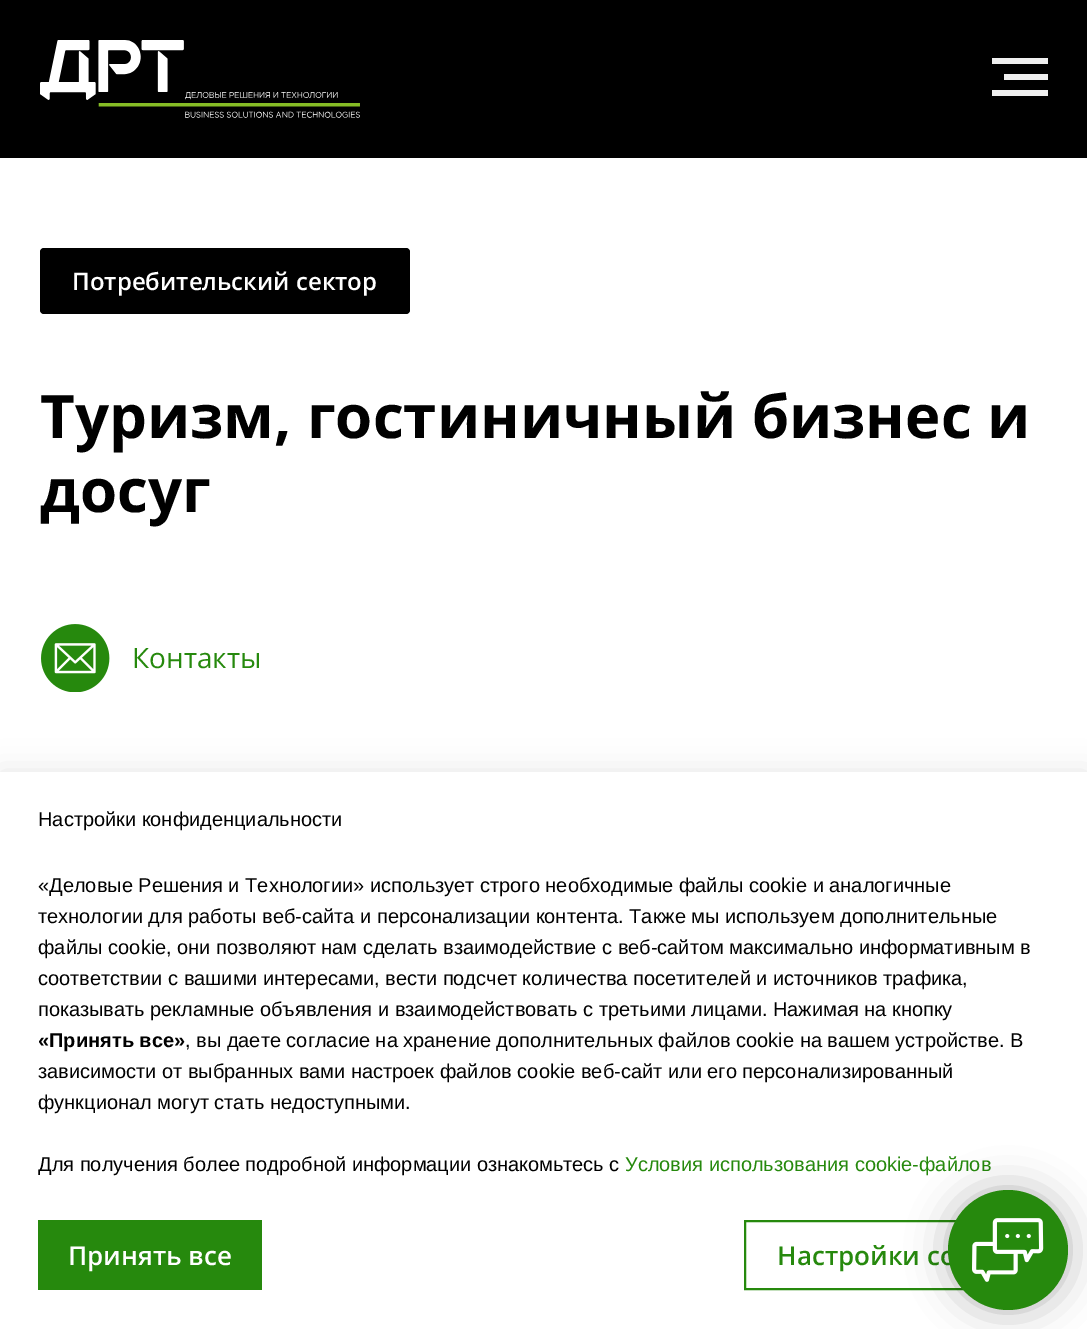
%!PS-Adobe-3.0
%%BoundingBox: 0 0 1087 1329
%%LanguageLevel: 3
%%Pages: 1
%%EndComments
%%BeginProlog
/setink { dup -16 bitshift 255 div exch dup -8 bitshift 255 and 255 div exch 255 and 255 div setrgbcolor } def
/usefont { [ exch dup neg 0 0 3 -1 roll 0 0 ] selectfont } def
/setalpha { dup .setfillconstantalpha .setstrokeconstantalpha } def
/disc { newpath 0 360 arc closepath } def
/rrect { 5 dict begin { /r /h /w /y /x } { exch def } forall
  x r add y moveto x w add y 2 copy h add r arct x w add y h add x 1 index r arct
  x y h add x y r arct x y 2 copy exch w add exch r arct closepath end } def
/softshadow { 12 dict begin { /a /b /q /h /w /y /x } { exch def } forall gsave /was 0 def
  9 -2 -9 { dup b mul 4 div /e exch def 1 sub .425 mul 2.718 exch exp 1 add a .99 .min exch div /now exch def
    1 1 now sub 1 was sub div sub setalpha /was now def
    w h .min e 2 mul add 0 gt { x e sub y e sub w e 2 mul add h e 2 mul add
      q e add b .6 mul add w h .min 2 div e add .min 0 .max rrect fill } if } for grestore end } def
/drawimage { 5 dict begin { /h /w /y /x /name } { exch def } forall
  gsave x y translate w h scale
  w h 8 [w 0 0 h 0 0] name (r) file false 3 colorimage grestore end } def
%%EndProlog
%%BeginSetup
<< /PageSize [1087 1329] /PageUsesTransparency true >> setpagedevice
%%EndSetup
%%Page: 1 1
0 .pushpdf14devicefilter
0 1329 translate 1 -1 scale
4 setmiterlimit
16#FFFFFF setink
0 0 1087 1329 rectfill
16#000000 setink
0 0 1087 158 rectfill
(img1.raw) 40 40 320 78 drawimage
[
    [992 58 56 6 16#EFEFEF]
    [1004 74 44 6 16#EFEFEF]
    [992 90 56 6 16#EFEFEF]
] { aload pop setink rectfill } forall
16#000000 setink
40 248 370 66 4 rrect fill
/OpenSans-SemiBold 24 usefont
16#FFFFFF setink
72 290 moveto (Потребительский сектор) show
/OpenSans-Bold 60 usefont
16#000000 setink
40 438 moveto (Туризм, гостиничный бизнес и) show
40 512 moveto (досуг) show
(img2.raw) 41 624 69 68 drawimage
/OpenSans-Regular 28 usefont
16#26890D setink
132 668 moveto (Контакты) show
16#000000 setink
0 772 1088 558 0 15 0.1 softshadow
16#FFFFFF setink
0 772 1087 557 rectfill
/LiberationSans-Regular 20 usefont
16#000000 setink
[
    [(Настройки конфиденциальности) 38 826]
    [(«Деловые Решения и Технологии» использует строго необходимые файлы cookie и аналогичные) 38 892]
    [(технологии для работы веб-сайта и персонализации контента. Также мы используем дополнительные) 38 923]
    [(файлы cookie, они позволяют нам сделать взаимодействие с веб-сайтом максимально информативным в) 38 954]
    [(соответствии с вашими интересами, вести подсчет количества посетителей и источников трафика,) 38 985]
    [(показывать рекламные объявления и взаимодействовать с третьими лицами. Нажимая на кнопку) 38 1016]
] { aload pop moveto show } forall
/LiberationSans-Bold 20 usefont
38 1047 moveto («Принять все») show
/LiberationSans-Regular 20 usefont
[
    [(, вы даете согласие на хранение дополнительных файлов cookie на вашем устройстве. В) 185 1047]
    [(зависимости от выбранных вами настроек файлов cookie веб-сайт или его персонализированный) 38 1078]
    [(функционал могут стать недоступными.) 38 1109]
    [(Для получения более подробной информации ознакомьтесь c) 38 1171]
] { aload pop moveto show } forall
16#26890D setink
625 1171 moveto (Условия использования cookie-файлов) show
38 1220 224 70 rectfill
/OpenSans-SemiBold 26 usefont
16#FFFFFF setink
68 1265 moveto (Принять все) show
16#26890D setink
2 setlinewidth
745 1221 294 68 rectstroke
777 1265 moveto (Настройки co) show
16#000000 setink
948 1190 120 120 60 20 0.3 softshadow
16#26890D setink
1008 1250 60 disc fill
(img3.raw) 972 1218 72 64 drawimage
.poppdf14devicefilter showpage
%%EOF
